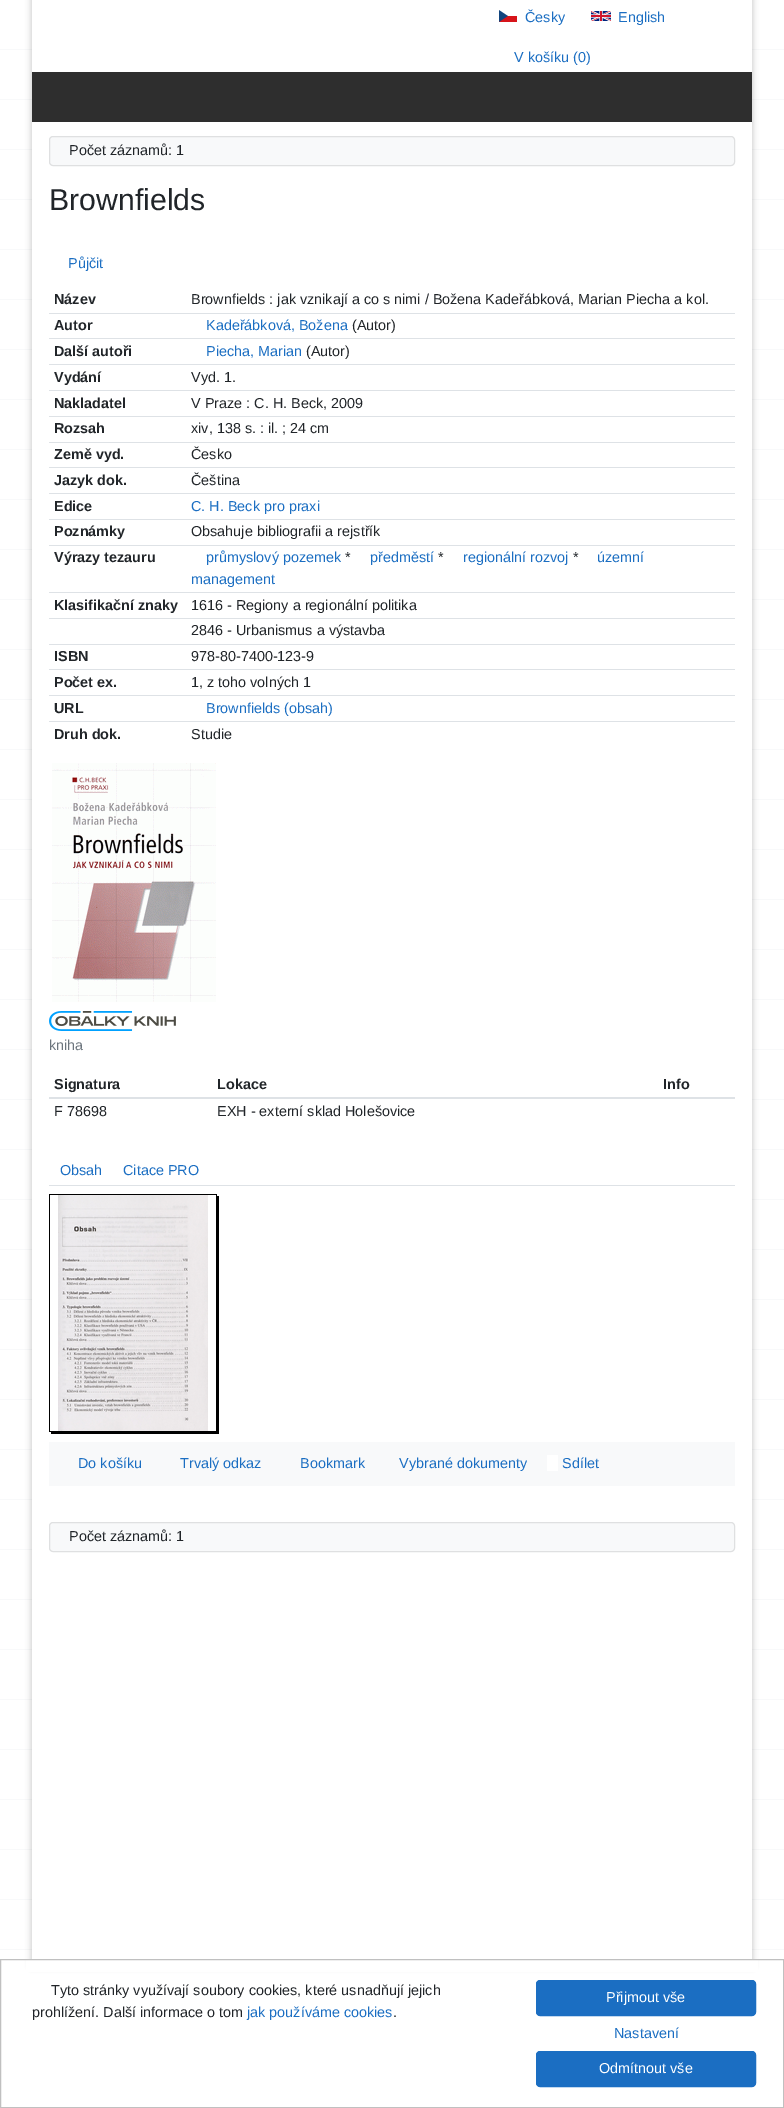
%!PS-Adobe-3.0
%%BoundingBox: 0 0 784 2108
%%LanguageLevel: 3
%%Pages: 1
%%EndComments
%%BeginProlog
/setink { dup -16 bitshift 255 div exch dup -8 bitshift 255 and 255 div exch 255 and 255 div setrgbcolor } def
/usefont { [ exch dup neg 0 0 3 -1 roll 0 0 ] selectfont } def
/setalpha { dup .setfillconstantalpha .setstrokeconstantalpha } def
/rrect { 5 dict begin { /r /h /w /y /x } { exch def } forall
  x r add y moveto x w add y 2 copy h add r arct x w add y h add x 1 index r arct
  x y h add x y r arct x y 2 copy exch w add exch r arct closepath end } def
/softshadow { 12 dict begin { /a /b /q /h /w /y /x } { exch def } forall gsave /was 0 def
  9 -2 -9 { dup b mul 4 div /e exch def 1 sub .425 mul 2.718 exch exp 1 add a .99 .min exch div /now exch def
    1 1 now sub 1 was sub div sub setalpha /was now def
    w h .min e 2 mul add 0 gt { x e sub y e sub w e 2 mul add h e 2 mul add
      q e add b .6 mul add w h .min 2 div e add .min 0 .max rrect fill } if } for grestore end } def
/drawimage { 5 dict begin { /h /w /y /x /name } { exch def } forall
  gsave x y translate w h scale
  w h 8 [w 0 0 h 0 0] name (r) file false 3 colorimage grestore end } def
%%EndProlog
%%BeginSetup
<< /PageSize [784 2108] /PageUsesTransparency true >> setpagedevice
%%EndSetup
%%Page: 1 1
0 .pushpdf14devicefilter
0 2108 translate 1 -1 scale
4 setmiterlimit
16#FFFFFF setink
0 0 784 2108 rectfill
(img1.raw) 0 49 784 1901 drawimage
16#000000 setink
31 -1 722 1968 0 3 0.2 softshadow
16#FFFFFF setink
32 0 720 1959 rectfill
(img2.raw) 499 10 18 12 drawimage
/LiberationSans-Regular 14.4 usefont
16#1B6EC2 setink
525 22 moveto (Česky) show
(img3.raw) 591 11 20 10 drawimage
618 22 moveto (English) show
514 62 moveto (V košíku \(0\)) show
16#2E2E2E setink
32 72 720 50 rectfill
16#F8F9FA setink
49.5 136.5 685 29 3.5 rrect gsave fill grestore
16#DFE0E1 setink
stroke
16#212529 setink
69 155 moveto (Počet záznamů: 1) show
/LiberationSans-Regular 30.25 usefont
49 210 moveto (Brownfields) show
/LiberationSans-Regular 14.4 usefont
16#1B6EC2 setink
68 268 moveto (Půjčit) show
/LiberationSans-Bold 14.4 usefont
16#212529 setink
54 304 moveto (Název) show
/LiberationSans-Regular 14.4 usefont
191 304 moveto (Brownfields : jak vznikají a co s nimi / Božena Kadeřábková, Marian Piecha a kol.) show
/LiberationSans-Bold 14.4 usefont
54 330 moveto (Autor) show
16#DEE2E6 setink
49 313 686 1 rectfill
/LiberationSans-Regular 14.4 usefont
16#1B6EC2 setink
206 330 moveto (Kadeřábková, Božena) show
16#212529 setink
352 330 moveto (\(Autor\)) show
/LiberationSans-Bold 14.4 usefont
54 356 moveto (Další autoři) show
16#DEE2E6 setink
49 338 686 1 rectfill
/LiberationSans-Regular 14.4 usefont
16#1B6EC2 setink
206 356 moveto (Piecha, Marian) show
16#212529 setink
306 356 moveto (\(Autor\)) show
/LiberationSans-Bold 14.4 usefont
54 382 moveto (Vydání) show
16#DEE2E6 setink
49 364 686 1 rectfill
/LiberationSans-Regular 14.4 usefont
16#212529 setink
191 382 moveto (Vyd. 1.) show
/LiberationSans-Bold 14.4 usefont
54 408 moveto (Nakladatel) show
16#DEE2E6 setink
49 390 686 1 rectfill
/LiberationSans-Regular 14.4 usefont
16#212529 setink
191 408 moveto (V Praze : C. H. Beck, 2009) show
/LiberationSans-Bold 14.4 usefont
54 433 moveto (Rozsah) show
16#DEE2E6 setink
49 416 686 1 rectfill
/LiberationSans-Regular 14.4 usefont
16#212529 setink
191 433 moveto (xiv, 138 s. : il. ; 24 cm) show
/LiberationSans-Bold 14.4 usefont
54 459 moveto (Země vyd.) show
16#DEE2E6 setink
49 442 686 1 rectfill
/LiberationSans-Regular 14.4 usefont
16#212529 setink
191 459 moveto (Česko) show
/LiberationSans-Bold 14.4 usefont
54 485 moveto (Jazyk dok.) show
16#DEE2E6 setink
49 467 686 1 rectfill
/LiberationSans-Regular 14.4 usefont
16#212529 setink
191 485 moveto (Čeština) show
/LiberationSans-Bold 14.4 usefont
54 511 moveto (Edice) show
16#DEE2E6 setink
49 493 686 1 rectfill
/LiberationSans-Regular 14.4 usefont
16#1B6EC2 setink
191 511 moveto (C. H. Beck pro praxi) show
/LiberationSans-Bold 14.4 usefont
16#212529 setink
54 536 moveto (Poznámky) show
16#DEE2E6 setink
49 519 686 1 rectfill
/LiberationSans-Regular 14.4 usefont
16#212529 setink
191 536 moveto (Obsahuje bibliografii a rejstřík) show
/LiberationSans-Bold 14.4 usefont
54 562 moveto (Výrazy tezauru) show
16#DEE2E6 setink
49 545 686 1 rectfill
/LiberationSans-Regular 14.4 usefont
16#1B6EC2 setink
206 562 moveto (průmyslový pozemek) show
16#212529 setink
345 562 moveto (*) show
16#1B6EC2 setink
370 562 moveto (předměstí) show
16#212529 setink
438 562 moveto (*) show
16#1B6EC2 setink
463 562 moveto (regionální rozvoj) show
16#212529 setink
573 562 moveto (*) show
16#1B6EC2 setink
597 562 moveto (územní) show
191 584 moveto (management) show
/LiberationSans-Bold 14.4 usefont
16#212529 setink
54 610 moveto (Klasifikační znaky) show
16#DEE2E6 setink
49 592 686 1 rectfill
/LiberationSans-Regular 14.4 usefont
16#212529 setink
191 610 moveto (1616 - Regiony a regionální politika) show
16#DEE2E6 setink
49 618 686 1 rectfill
16#212529 setink
191 635 moveto (2846 - Urbanismus a výstavba) show
/LiberationSans-Bold 14.4 usefont
54 661 moveto (ISBN) show
16#DEE2E6 setink
49 644 686 1 rectfill
/LiberationSans-Regular 14.4 usefont
16#212529 setink
191 661 moveto (978-80-7400-123-9) show
/LiberationSans-Bold 14.4 usefont
54 687 moveto (Počet ex.) show
16#DEE2E6 setink
49 669 686 1 rectfill
/LiberationSans-Regular 14.4 usefont
16#212529 setink
191 687 moveto (1, z toho volných 1) show
/LiberationSans-Bold 14.4 usefont
54 713 moveto (URL) show
16#DEE2E6 setink
49 695 686 1 rectfill
/LiberationSans-Regular 14.4 usefont
16#1B6EC2 setink
206 713 moveto (Brownfields \(obsah\)) show
/LiberationSans-Bold 14.4 usefont
16#212529 setink
54 739 moveto (Druh dok.) show
16#DEE2E6 setink
49 721 686 1 rectfill
/LiberationSans-Regular 14.4 usefont
16#212529 setink
191 739 moveto (Studie) show
(img4.raw) 52 763 164 239 drawimage
(img5.raw) 49 1011 127 20 drawimage
16#6C757D setink
49 1050 moveto (kniha) show
/LiberationSans-Bold 14.4 usefont
16#212529 setink
54 1089 moveto (Signatura) show
217 1089 moveto (Lokace) show
16#DEE2E6 setink
49 1097 686 2 rectfill
16#212529 setink
663 1089 moveto (Info) show
/LiberationSans-Regular 14.4 usefont
54 1116 moveto (F 78698) show
217 1116 moveto (EXH - externí sklad Holešovice) show
16#DEE2E6 setink
49 1185 686 1 rectfill
16#1B6EC2 setink
60 1175 moveto (Obsah) show
123 1175 moveto (Citace PRO) show
(img6.raw) 49 1194 170 240 drawimage
16#F8F9FA setink
49 1442 686 44 rectfill
16#1B6EC2 setink
[
    [(Do košíku) 78 1468]
    [(Trvalý odkaz) 180 1468]
    [(Bookmark) 300 1468]
    [(Vybrané dokumenty) 399 1468]
    [(Sdílet) 562 1468]
] { aload pop moveto show } forall
16#FFFFFF setink
547 1455 11 16 rectfill
16#F8F9FA setink
49.5 1522.5 685 29 3.5 rrect gsave fill grestore
16#DFE0E1 setink
stroke
16#212529 setink
69 1541 moveto (Počet záznamů: 1) show
16#FFFFFF setink
26 1960 732 12 rectfill
16#C0C0C0 setink
0.5 1959.5 783 148 rectstroke
16#212529 setink
51 1995 moveto (Tyto stránky využívají soubory cookies, které usnadňují jejich) show
32 2017 moveto (prohlížení. Další informace o tom) show
16#1B6EC2 setink
247 2017 moveto (jak používáme cookies) show
16#212529 setink
393 2017 moveto (.) show
16#1B6EC2 setink
536.5 1980.5 219 35 3.5 rrect gsave fill grestore
stroke
16#FFFFFF setink
606 2002 moveto (Přijmout vše) show
16#1B6EC2 setink
614 2038 moveto (Nastavení) show
536.5 2051.5 219 35 3.5 rrect gsave fill grestore
stroke
16#FFFFFF setink
599 2073 moveto (Odmítnout vše) show
.poppdf14devicefilter showpage
%%EOF
